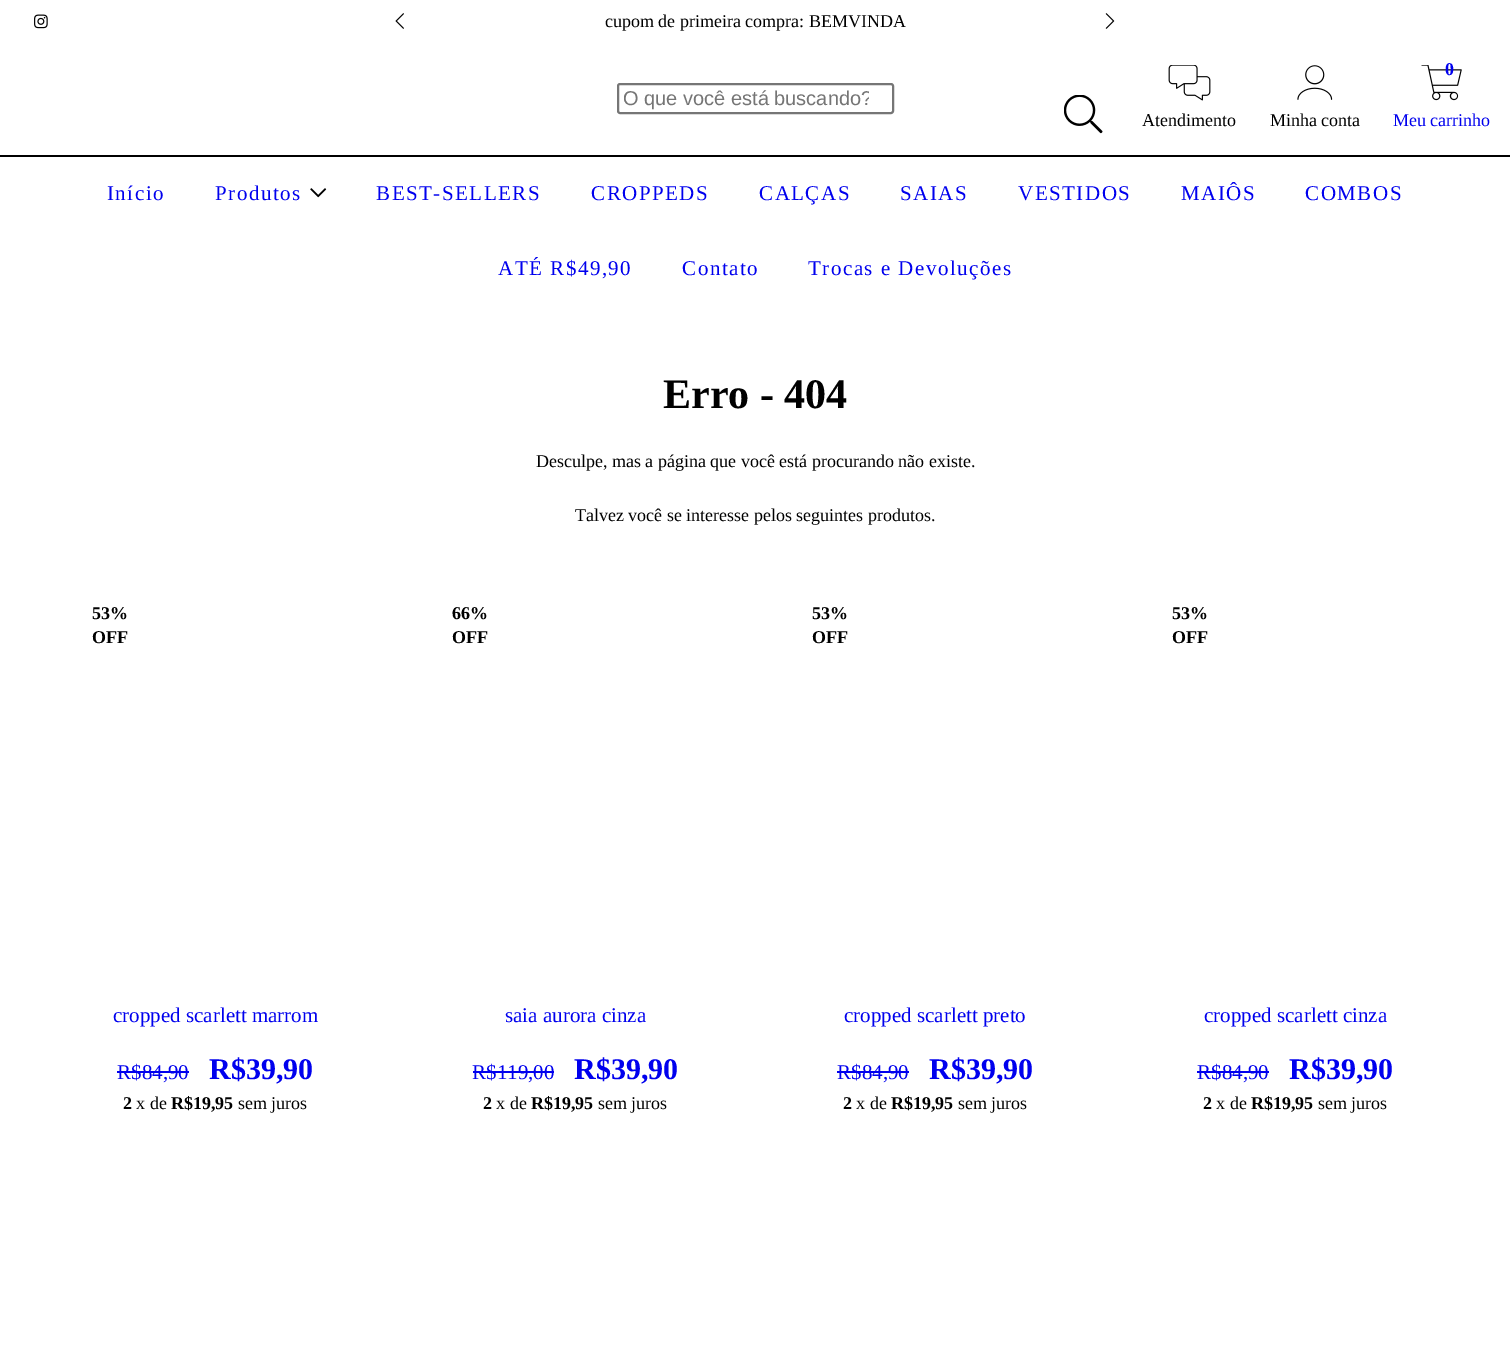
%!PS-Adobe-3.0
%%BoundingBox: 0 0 1510 1368
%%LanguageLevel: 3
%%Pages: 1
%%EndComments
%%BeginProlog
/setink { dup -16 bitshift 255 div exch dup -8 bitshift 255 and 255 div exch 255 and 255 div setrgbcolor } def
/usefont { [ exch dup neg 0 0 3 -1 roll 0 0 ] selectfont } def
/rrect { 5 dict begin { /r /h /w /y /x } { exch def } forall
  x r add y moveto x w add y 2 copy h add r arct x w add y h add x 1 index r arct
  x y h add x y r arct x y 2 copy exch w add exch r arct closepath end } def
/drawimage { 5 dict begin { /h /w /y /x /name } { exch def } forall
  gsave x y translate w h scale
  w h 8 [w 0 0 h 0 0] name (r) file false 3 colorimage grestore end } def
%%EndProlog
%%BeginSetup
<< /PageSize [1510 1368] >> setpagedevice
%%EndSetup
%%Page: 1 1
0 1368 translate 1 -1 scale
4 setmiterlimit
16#FFFFFF setink
0 0 1510 1368 rectfill
(img1.raw) 34 14 14 15 drawimage
(img2.raw) 395 13 9 16 drawimage
/LiberationSerif-Regular 18 usefont
16#000000 setink
605 27 moveto (cupom de primeira compra: BEMVINDA) show
(img3.raw) 1105 13 10 16 drawimage
16#767676 setink
2 setlinewidth
618 84 275 29 2 rrect stroke
gsave
623 87 246 23 rectclip
/LiberationSans-Regular 20 usefont
16#757575 setink
623 105 moveto (O que você está buscando?) show
grestore
(img4.raw) 1064 95 39 39 drawimage
(img5.raw) 1168 65 43 36 drawimage
16#000000 setink
1142 126 moveto (Atendimento) show
(img6.raw) 1297 65 36 35 drawimage
1270 126 moveto (Minha conta) show
(img7.raw) 1421 65 41 36 drawimage
/LiberationSerif-Bold 18 usefont
16#0000EE setink
1445 75 moveto (0) show
/LiberationSerif-Regular 18 usefont
1393 126 moveto (Meu carrinho) show
16#000000 setink
0 155 1510 2 rectfill
/LiberationSerif-Regular 21 usefont
16#0000EE setink
107 200 moveto 1.5 0 (Início) ashow
215 200 moveto 1.5 0 (Produtos) ashow
(img8.raw) 310 188 17 10 drawimage
376 200 moveto 1.5 0 (BEST-SELLERS) ashow
591 200 moveto 1.5 0 (CROPPEDS) ashow
759 200 moveto 1.5 0 (CALÇAS) ashow
900 200 moveto 1.5 0 (SAIAS) ashow
1018 200 moveto 1.5 0 (VESTIDOS) ashow
1181 200 moveto 1.5 0 (MAIÔS) ashow
1305 200 moveto 1.5 0 (COMBOS) ashow
498 275 moveto 1.5 0 (ATÉ R$49,90) ashow
682 275 moveto 1.5 0 (Contato) ashow
808 275 moveto 1.5 0 (Trocas e Devoluções) ashow
/LiberationSerif-Bold 42 usefont
16#000000 setink
663 408 moveto (Erro - 404) show
/LiberationSerif-Regular 18 usefont
536 467 moveto (Desculpe, mas a página que você está procurando não existe.) show
575 521 moveto (Talvez você se interesse pelos seguintes produtos.) show
/LiberationSerif-Bold 18 usefont
92 619 moveto (53%) show
92 643 moveto (OFF) show
/LiberationSerif-Regular 21 usefont
16#0000EE setink
113 1022 moveto (cropped scarlett marrom) show
117 1079 moveto (R$84,90) show
117 1071 72 2 rectfill
/LiberationSerif-Bold 30 usefont
209 1079 moveto (R$39,90) show
/LiberationSerif-Bold 18 usefont
16#000000 setink
123 1109 moveto (2) show
/LiberationSerif-Regular 18 usefont
136 1109 moveto (x de) show
/LiberationSerif-Bold 18 usefont
171 1109 moveto (R$19,95) show
/LiberationSerif-Regular 18 usefont
238 1109 moveto (sem juros) show
/LiberationSerif-Bold 18 usefont
452 619 moveto (66%) show
452 643 moveto (OFF) show
/LiberationSerif-Regular 21 usefont
16#0000EE setink
505 1022 moveto (saia aurora cinza) show
472 1079 moveto (R$119,00) show
473 1071 81 2 rectfill
/LiberationSerif-Bold 30 usefont
574 1079 moveto (R$39,90) show
/LiberationSerif-Bold 18 usefont
16#000000 setink
483 1109 moveto (2) show
/LiberationSerif-Regular 18 usefont
496 1109 moveto (x de) show
/LiberationSerif-Bold 18 usefont
531 1109 moveto (R$19,95) show
/LiberationSerif-Regular 18 usefont
598 1109 moveto (sem juros) show
/LiberationSerif-Bold 18 usefont
812 619 moveto (53%) show
812 643 moveto (OFF) show
/LiberationSerif-Regular 21 usefont
16#0000EE setink
844 1022 moveto (cropped scarlett preto) show
837 1079 moveto (R$84,90) show
837 1071 72 2 rectfill
/LiberationSerif-Bold 30 usefont
929 1079 moveto (R$39,90) show
/LiberationSerif-Bold 18 usefont
16#000000 setink
843 1109 moveto (2) show
/LiberationSerif-Regular 18 usefont
856 1109 moveto (x de) show
/LiberationSerif-Bold 18 usefont
891 1109 moveto (R$19,95) show
/LiberationSerif-Regular 18 usefont
958 1109 moveto (sem juros) show
/LiberationSerif-Bold 18 usefont
1172 619 moveto (53%) show
1172 643 moveto (OFF) show
/LiberationSerif-Regular 21 usefont
16#0000EE setink
1204 1022 moveto (cropped scarlett cinza) show
1197 1079 moveto (R$84,90) show
1197 1071 72 2 rectfill
/LiberationSerif-Bold 30 usefont
1289 1079 moveto (R$39,90) show
/LiberationSerif-Bold 18 usefont
16#000000 setink
1203 1109 moveto (2) show
/LiberationSerif-Regular 18 usefont
1216 1109 moveto (x de) show
/LiberationSerif-Bold 18 usefont
1251 1109 moveto (R$19,95) show
/LiberationSerif-Regular 18 usefont
1318 1109 moveto (sem juros) show
showpage
%%EOF
